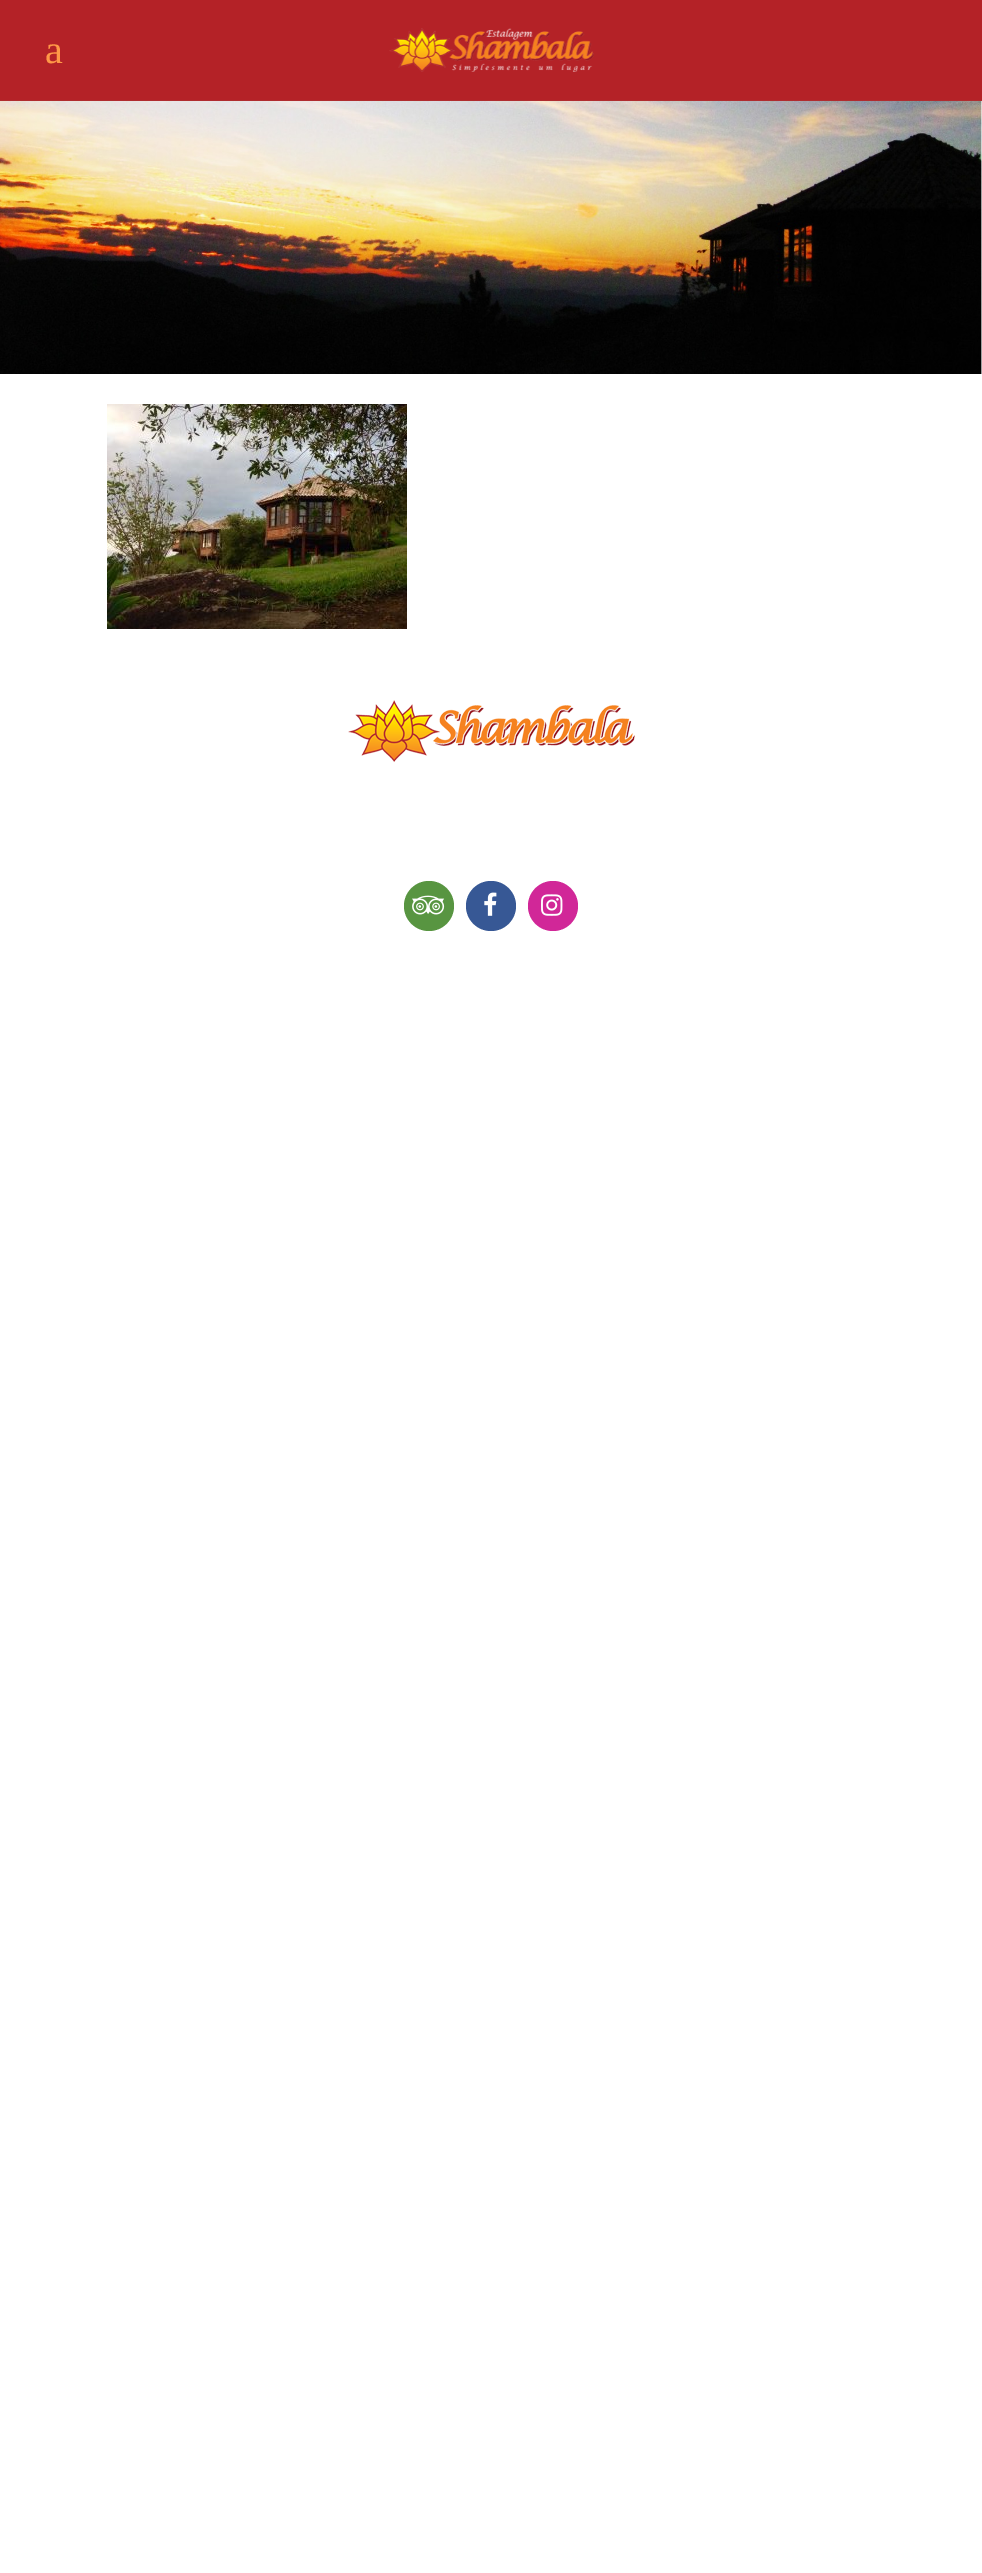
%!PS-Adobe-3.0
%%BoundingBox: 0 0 982 2573
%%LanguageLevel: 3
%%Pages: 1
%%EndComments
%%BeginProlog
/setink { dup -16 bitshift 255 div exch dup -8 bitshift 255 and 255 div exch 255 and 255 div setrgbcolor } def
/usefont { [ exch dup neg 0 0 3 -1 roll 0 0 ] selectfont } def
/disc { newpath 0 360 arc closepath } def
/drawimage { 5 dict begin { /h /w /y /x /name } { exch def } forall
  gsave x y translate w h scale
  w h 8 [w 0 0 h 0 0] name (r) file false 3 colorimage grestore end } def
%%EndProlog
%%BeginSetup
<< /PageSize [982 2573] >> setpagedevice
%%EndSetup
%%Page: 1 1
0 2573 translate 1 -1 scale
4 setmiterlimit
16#FFFFFF setink
0 0 982 2573 rectfill
16#B42227 setink
0 0 982 100 rectfill
16#B02C2F setink
0 100 982 1 rectfill
/LiberationSerif-Regular 40 usefont
16#FF9847 setink
45 63 moveto (a) show
(img1.raw) 389 28 205 44 drawimage
(img2.raw) 0 101 982 273 drawimage
(img3.raw) 107 404 300 225 drawimage
(img4.raw) 348 700 287 62 drawimage
16#589541 setink
429 906 25 disc fill
(img5.raw) 412 895 33 20 drawimage
16#375895 setink
491 906 25 disc fill
(img6.raw) 484 892 13 24 drawimage
16#D12798 setink
553 906 25 disc fill
(img7.raw) 541 894 22 22 drawimage
showpage
%%EOF
